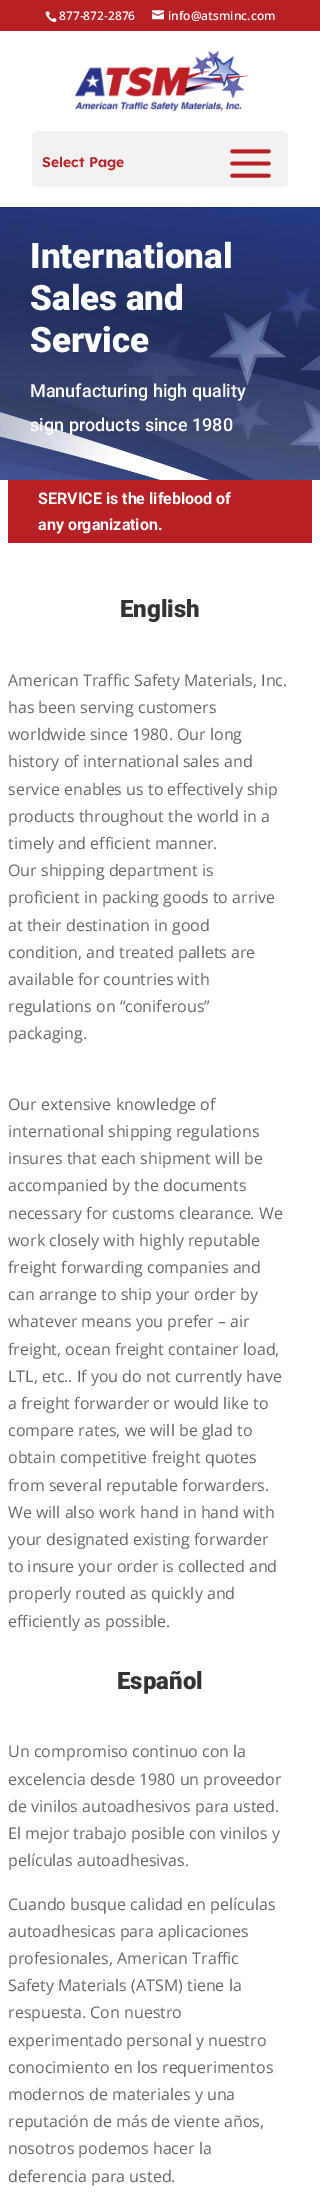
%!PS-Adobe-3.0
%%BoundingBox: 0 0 320 2198
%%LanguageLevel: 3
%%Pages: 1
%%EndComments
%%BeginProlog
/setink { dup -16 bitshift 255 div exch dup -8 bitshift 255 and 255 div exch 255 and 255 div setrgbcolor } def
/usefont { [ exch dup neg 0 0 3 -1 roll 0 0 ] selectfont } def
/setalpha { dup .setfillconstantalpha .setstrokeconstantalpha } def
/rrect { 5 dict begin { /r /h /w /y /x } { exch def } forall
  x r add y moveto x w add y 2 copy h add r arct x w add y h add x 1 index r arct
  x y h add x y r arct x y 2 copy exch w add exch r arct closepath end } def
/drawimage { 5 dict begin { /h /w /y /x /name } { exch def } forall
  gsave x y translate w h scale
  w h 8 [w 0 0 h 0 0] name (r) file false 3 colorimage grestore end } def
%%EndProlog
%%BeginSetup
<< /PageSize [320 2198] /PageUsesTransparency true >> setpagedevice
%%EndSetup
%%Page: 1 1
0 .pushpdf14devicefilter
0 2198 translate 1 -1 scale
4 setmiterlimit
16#FFFFFF setink
0 0 320 2198 rectfill
16#B72125 setink
0 0 320 31 rectfill
(img1.raw) 45 11 12 12 drawimage
/OpenSans-SemiBold 12 usefont
16#FFFFFF setink
59 20 moveto (877-872-2876) show
(img2.raw) 152 10 12 10 drawimage
168 20 moveto (info@atsminc.com) show
(img5.raw) 0 207 320 273 drawimage
0.1 setalpha
16#000000 setink
0 207 320 1 rectfill
1 setalpha
(img3.raw) 75 51 175 60 drawimage
16#F2F2F2 setink
32 131 256 56 5 rrect fill
/LexendDeca-SemiBold 14 usefont
16#B72125 setink
42 167 moveto (Select Page) show
(img4.raw) 230 149 41 29 drawimage
/Roboto-Black 35 usefont
16#FFFFFF setink
[
    [(International) 30 268]
    [(Sales and) 30 310]
    [(Service) 30 352]
] { aload pop moveto show } forall
/Roboto-Medium 18 usefont
30 397 moveto (Manufacturing high quality) show
30 431 moveto (sign products since 1980) show
16#B72025 setink
8 480 304 63 rectfill
/Roboto-Bold 16 usefont
16#FFFFFF setink
38 504 moveto (SERVICE is the lifeblood of) show
38 530 moveto (any organization.) show
/Roboto-Black 24 usefont
16#333333 setink
120 617 moveto (English) show
/OpenSans-Regular 16 usefont
16#666666 setink
[
    [(American Traffic Safety Materials, Inc.) 8 686]
    [(has been serving customers) 8 713]
    [(worldwide since 1980. Our long) 8 740]
    [(history of international sales and) 8 767]
    [(service enables us to effectively ship) 8 795]
    [(products throughout the world in a) 8 822]
    [(timely and efficient manner.) 8 849]
    [(Our shipping department is) 8 876]
    [(proficient in packing goods to arrive) 8 903]
    [(at their destination in good) 8 931]
    [(condition, and treated pallets are) 8 958]
    [(available for countries with) 8 985]
    [(regulations on “coniferous”) 8 1012]
    [(packaging.) 8 1039]
    [(Our extensive knowledge of) 8 1110]
    [(international shipping regulations) 8 1137]
    [(insures that each shipment will be) 8 1164]
    [(accompanied by the documents) 8 1191]
    [(necessary for customs clearance. We) 8 1219]
    [(work closely with highly reputable) 8 1246]
    [(freight forwarding companies and) 8 1273]
    [(can arrange to ship your order by) 8 1300]
    [(whatever means you prefer – air) 8 1327]
    [(freight, ocean freight container load,) 8 1355]
    [(LTL, etc.. If you do not currently have) 8 1382]
    [(a freight forwarder or would like to) 8 1409]
    [(compare rates, we will be glad to) 8 1436]
    [(obtain competitive freight quotes) 8 1463]
    [(from several reputable forwarders.) 8 1491]
    [(We will also work hand in hand with) 8 1518]
    [(your designated existing forwarder) 8 1545]
    [(to insure your order is collected and) 8 1572]
    [(properly routed as quickly and) 8 1599]
    [(efficiently as possible.) 8 1627]
] { aload pop moveto show } forall
/Roboto-Black 24 usefont
16#333333 setink
117 1689 moveto (Español) show
/OpenSans-Regular 16 usefont
16#666666 setink
[
    [(Un compromiso continuo con la) 8 1757]
    [(excelencia desde 1980 un proveedor) 8 1785]
    [(de vinilos autoadhesivos para usted.) 8 1812]
    [(El mejor trabajo posible con vinilos y) 8 1839]
    [(películas autoadhesivas.) 8 1866]
    [(Cuando busque calidad en películas) 8 1910]
    [(autoadhesicas para aplicaciones) 8 1937]
    [(profesionales, American Traffic) 8 1964]
    [(Safety Materials \(ATSM\) tiene la) 8 1991]
    [(respuesta. Con nuestro) 8 2018]
    [(experimentado personal y nuestro) 8 2046]
    [(conocimiento en los requerimentos) 8 2073]
    [(modernos de materiales y una) 8 2100]
    [(reputación de más de viente años,) 8 2127]
    [(nosotros podemos hacer la) 8 2154]
    [(deferencia para usted.) 8 2182]
] { aload pop moveto show } forall
.poppdf14devicefilter showpage
%%EOF
